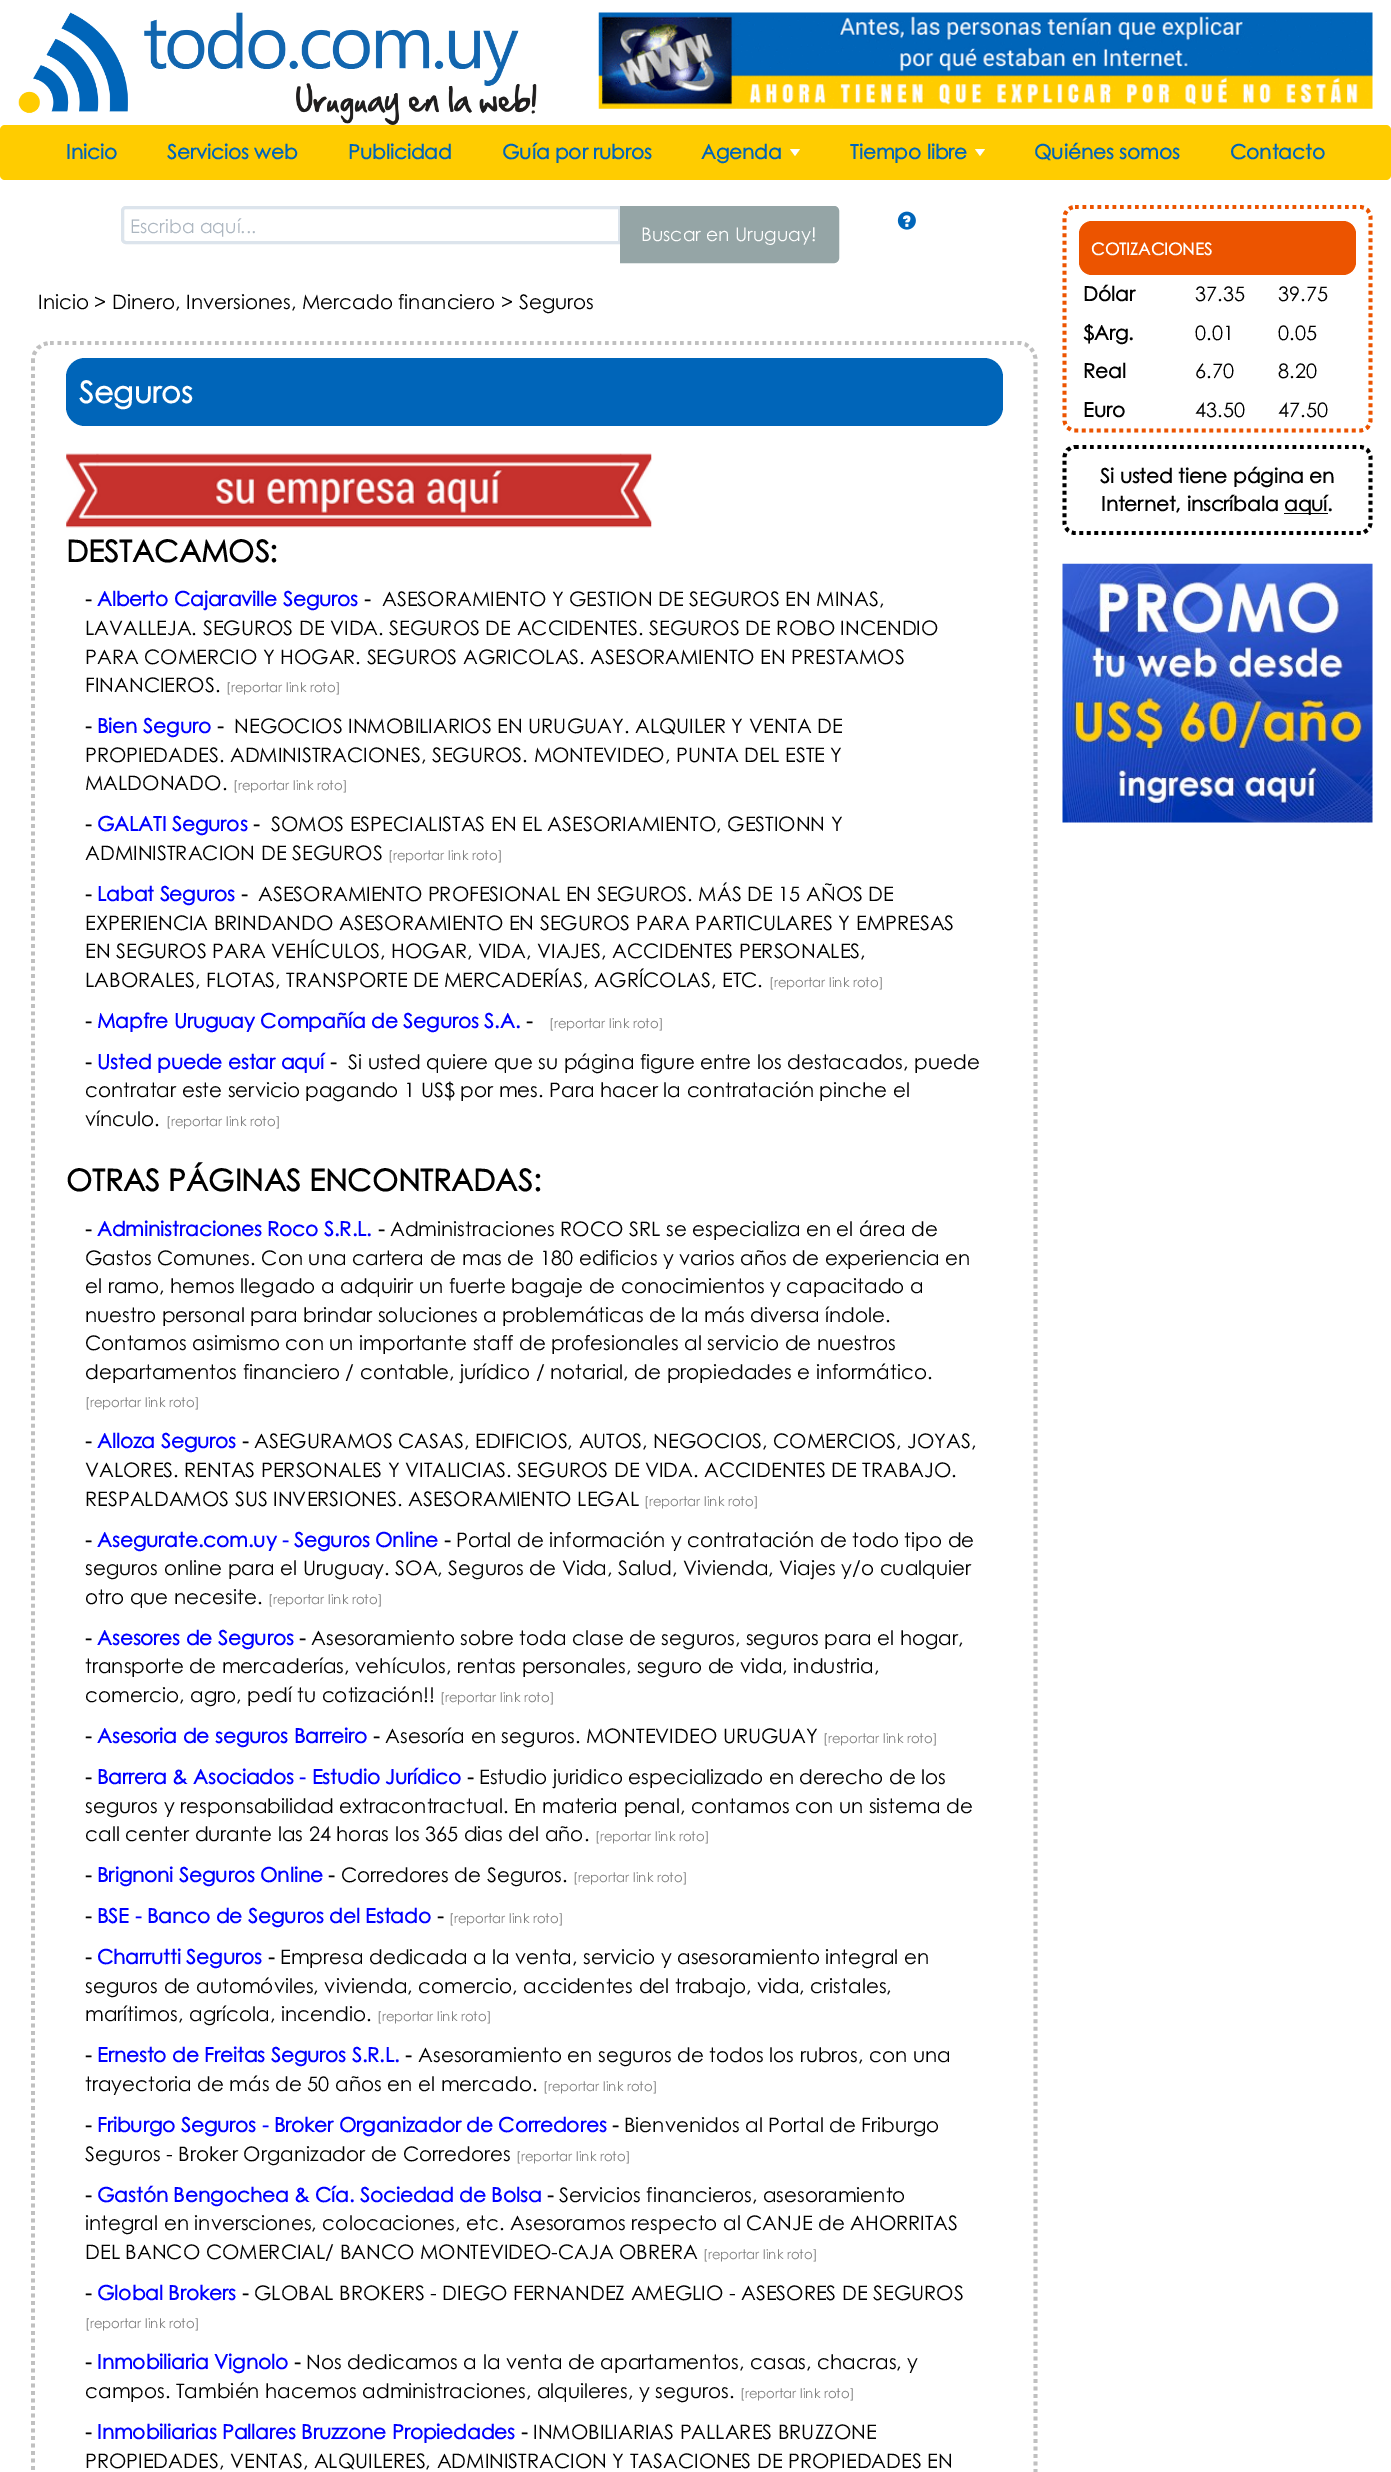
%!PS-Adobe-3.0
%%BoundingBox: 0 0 1391 2472
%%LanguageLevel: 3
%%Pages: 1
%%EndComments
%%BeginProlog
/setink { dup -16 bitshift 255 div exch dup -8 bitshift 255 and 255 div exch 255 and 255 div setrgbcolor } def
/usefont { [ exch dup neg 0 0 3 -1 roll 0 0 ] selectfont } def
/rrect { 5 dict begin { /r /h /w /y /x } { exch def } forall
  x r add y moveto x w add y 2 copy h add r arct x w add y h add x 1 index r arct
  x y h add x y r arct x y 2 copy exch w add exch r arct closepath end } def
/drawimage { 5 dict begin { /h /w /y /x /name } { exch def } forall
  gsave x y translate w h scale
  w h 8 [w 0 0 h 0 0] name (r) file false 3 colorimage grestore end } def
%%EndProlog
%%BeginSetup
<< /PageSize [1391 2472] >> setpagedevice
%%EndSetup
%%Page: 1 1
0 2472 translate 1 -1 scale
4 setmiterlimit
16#FFFFFF setink
0 0 1391 2472 rectfill
(img1.raw) 18 12 519 113 drawimage
(img2.raw) 598 12 775 97 drawimage
16#FFCC00 setink
0 125 1391 55 5 rrect fill
/CenturyGothic-Bold 20 usefont
16#0065B9 setink
[
    [(Inicio) 66 159]
    [(Servicios web) 167 159]
    [(Publicidad) 348 159]
    [(Guía por rubros) 502 159]
    [(Agenda) 701 159]
] { aload pop moveto show } forall
16#FFFFFF setink
790 149 moveto 800 149 lineto 795 156 lineto closepath fill
16#0065B9 setink
850 159 moveto (Tiempo libre) show
16#FFFFFF setink
975 149 moveto 985 149 lineto 980 156 lineto closepath fill
16#0065B9 setink
1034 159 moveto (Quiénes somos) show
1230 159 moveto (Contacto) show
16#DCE4EC setink
3 setlinewidth
126 207.5 moveto 619.5 207.5 lineto 619.5 242.5 lineto 126 242.5 lineto 124 242.5 122.5 241 122.5 239 curveto 122.5 211 lineto 122.5 209 124 207.5 126 207.5 curveto closepath stroke
/CenturyGothic-Regular 18.75 usefont
16#ACB6C0 setink
130 233 moveto (Escriba aquí...) show
16#95A5A6 setink
621.5 207.5 moveto 834 207.5 lineto 836 207.5 837.5 209 837.5 211 curveto 837.5 258 lineto 837.5 260 836 261.5 834 261.5 curveto 621.5 261.5 lineto closepath gsave fill grestore
stroke
16#FFFFFF setink
641 241 moveto (Buscar en Uruguay!) show
(img3.raw) 897 211 19 19 drawimage
/CenturyGothic-Regular 20 usefont
16#000000 setink
38 309 moveto (Inicio > Dinero, Inversiones, Mercado financiero > Seguros) show
16#C0C0C0 setink
3.8 setlinewidth
[3.75 3.75] 0 setdash
50 343 moveto 1019 343 lineto 1028 343 1035.5 350.5 1035.5 360 curveto 1035.5 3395 lineto 1035.5 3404.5 1028 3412 1019 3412 curveto 50 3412 lineto 40.5 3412 33 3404.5 33 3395 curveto 33 360 lineto 33 350.5 40.5 343 50 343 curveto closepath stroke
16#0065B9 setink
66 358 937 68 19 rrect fill
/CenturyGothic-Bold 30 usefont
16#FFFFFF setink
79 403 moveto (Seguros) show
(img4.raw) 66 453 586 75 drawimage
16#000000 setink
66 562 moveto (DESTACAMOS:) show
/CenturyGothic-Bold 20 usefont
85 606 moveto (-) show
16#0000FF setink
97 606 moveto (Alberto Cajaraville Seguros) show
16#000000 setink
364 606 moveto (-) show
/CenturyGothic-Regular 20 usefont
[
    [(ASESORAMIENTO Y GESTION DE SEGUROS EN MINAS,) 382 606]
    [(LAVALLEJA. SEGUROS DE VIDA. SEGUROS DE ACCIDENTES. SEGUROS DE ROBO INCENDIO) 85 635]
    [(PARA COMERCIO Y HOGAR. SEGUROS AGRICOLAS. ASESORAMIENTO EN PRESTAMOS) 85 664]
    [(FINANCIEROS.) 85 692]
] { aload pop moveto show } forall
/CenturyGothic-Regular 13.25 usefont
16#808080 setink
226 692 moveto ([reportar link roto]) show
/CenturyGothic-Bold 20 usefont
16#000000 setink
85 733 moveto (-) show
16#0000FF setink
97 733 moveto (Bien Seguro) show
16#000000 setink
217 733 moveto (-) show
/CenturyGothic-Regular 20 usefont
[
    [(NEGOCIOS INMOBILIARIOS EN URUGUAY. ALQUILER Y VENTA DE) 234 733]
    [(PROPIEDADES. ADMINISTRACIONES, SEGUROS. MONTEVIDEO, PUNTA DEL ESTE Y) 85 762]
    [(MALDONADO.) 85 790]
] { aload pop moveto show } forall
/CenturyGothic-Regular 13.25 usefont
16#808080 setink
233 790 moveto ([reportar link roto]) show
/CenturyGothic-Bold 20 usefont
16#000000 setink
85 831 moveto (-) show
16#0000FF setink
97 831 moveto (GALATI Seguros) show
16#000000 setink
253 831 moveto (-) show
/CenturyGothic-Regular 20 usefont
271 831 moveto (SOMOS ESPECIALISTAS EN EL ASESORIAMIENTO, GESTIONN Y) show
85 860 moveto (ADMINISTRACION DE SEGUROS) show
/CenturyGothic-Regular 13.25 usefont
16#808080 setink
388 860 moveto ([reportar link roto]) show
/CenturyGothic-Bold 20 usefont
16#000000 setink
85 901 moveto (-) show
16#0000FF setink
97 901 moveto (Labat Seguros) show
16#000000 setink
241 901 moveto (-) show
/CenturyGothic-Regular 20 usefont
[
    [(ASESORAMIENTO PROFESIONAL EN SEGUROS. MÁS DE 15 AÑOS DE) 258 901]
    [(EXPERIENCIA BRINDANDO ASESORAMIENTO EN SEGUROS PARA PARTICULARES Y EMPRESAS) 85 930]
    [(EN SEGUROS PARA VEHÍCULOS, HOGAR, VIDA, VIAJES, ACCIDENTES PERSONALES,) 85 958]
    [(LABORALES, FLOTAS, TRANSPORTE DE MERCADERÍAS, AGRÍCOLAS, ETC.) 85 987]
] { aload pop moveto show } forall
/CenturyGothic-Regular 13.25 usefont
16#808080 setink
769 987 moveto ([reportar link roto]) show
/CenturyGothic-Bold 20 usefont
16#000000 setink
85 1028 moveto (-) show
16#0000FF setink
97 1028 moveto (Mapfre Uruguay Compañía de Seguros S.A.) show
16#000000 setink
526 1028 moveto (-) show
/CenturyGothic-Regular 13.25 usefont
16#808080 setink
549 1028 moveto ([reportar link roto]) show
/CenturyGothic-Bold 20 usefont
16#000000 setink
85 1069 moveto (-) show
16#0000FF setink
97 1069 moveto (Usted puede estar aquí) show
16#000000 setink
330 1069 moveto (-) show
/CenturyGothic-Regular 20 usefont
[
    [(Si usted quiere que su página figure entre los destacados, puede) 348 1069]
    [(contratar este servicio pagando 1 US$ por mes. Para hacer la contratación pinche el) 85 1097]
    [(vínculo.) 85 1126]
] { aload pop moveto show } forall
/CenturyGothic-Regular 13.25 usefont
16#808080 setink
166 1126 moveto ([reportar link roto]) show
/CenturyGothic-Bold 30 usefont
16#000000 setink
66 1191 moveto (OTRAS PÁGINAS ENCONTRADAS:) show
/CenturyGothic-Bold 20 usefont
85 1236 moveto (-) show
16#0000FF setink
97 1236 moveto (Administraciones Roco S.R.L.) show
16#000000 setink
378 1236 moveto (-) show
/CenturyGothic-Regular 20 usefont
[
    [(Administraciones ROCO SRL se especializa en el área de) 390 1236]
    [(Gastos Comunes. Con una cartera de mas de 180 edificios y varios años de experiencia en) 85 1265]
    [(el ramo, hemos llegado a adquirir un fuerte bagaje de conocimientos y capacitado a) 85 1293]
    [(nuestro personal para brindar soluciones a problemáticas de la más diversa índole.) 85 1322]
    [(Contamos asimismo con un importante staff de profesionales al servicio de nuestros) 85 1350]
    [(departamentos financiero / contable, jurídico / notarial, de propiedades e informático.) 85 1379]
] { aload pop moveto show } forall
/CenturyGothic-Regular 13.25 usefont
16#808080 setink
85 1407 moveto ([reportar link roto]) show
/CenturyGothic-Bold 20 usefont
16#000000 setink
85 1448 moveto (-) show
16#0000FF setink
97 1448 moveto (Alloza Seguros) show
16#000000 setink
242 1448 moveto (-) show
/CenturyGothic-Regular 20 usefont
[
    [(ASEGURAMOS CASAS, EDIFICIOS, AUTOS, NEGOCIOS, COMERCIOS, JOYAS,) 254 1448]
    [(VALORES. RENTAS PERSONALES Y VITALICIAS. SEGUROS DE VIDA. ACCIDENTES DE TRABAJO.) 85 1477]
    [(RESPALDAMOS SUS INVERSIONES. ASESORAMIENTO LEGAL) 85 1506]
] { aload pop moveto show } forall
/CenturyGothic-Regular 13.25 usefont
16#808080 setink
644 1506 moveto ([reportar link roto]) show
/CenturyGothic-Bold 20 usefont
16#000000 setink
85 1547 moveto (-) show
16#0000FF setink
97 1547 moveto (Asegurate.com.uy - Seguros Online) show
16#000000 setink
444 1547 moveto (-) show
/CenturyGothic-Regular 20 usefont
[
    [(Portal de información y contratación de todo tipo de) 456 1547]
    [(seguros online para el Uruguay. SOA, Seguros de Vida, Salud, Vivienda, Viajes y/o cualquier) 85 1575]
    [(otro que necesite.) 85 1604]
] { aload pop moveto show } forall
/CenturyGothic-Regular 13.25 usefont
16#808080 setink
268 1604 moveto ([reportar link roto]) show
/CenturyGothic-Bold 20 usefont
16#000000 setink
85 1645 moveto (-) show
16#0000FF setink
97 1645 moveto (Asesores de Seguros) show
16#000000 setink
299 1645 moveto (-) show
/CenturyGothic-Regular 20 usefont
[
    [(Asesoramiento sobre toda clase de seguros, seguros para el hogar,) 311 1645]
    [(transporte de mercaderías, vehículos, rentas personales, seguro de vida, industria,) 85 1673]
    [(comercio, agro, pedí tu cotización!!) 85 1702]
] { aload pop moveto show } forall
/CenturyGothic-Regular 13.25 usefont
16#808080 setink
440 1702 moveto ([reportar link roto]) show
/CenturyGothic-Bold 20 usefont
16#000000 setink
85 1743 moveto (-) show
16#0000FF setink
97 1743 moveto (Asesoria de seguros Barreiro) show
16#000000 setink
373 1743 moveto (-) show
/CenturyGothic-Regular 20 usefont
385 1743 moveto (Asesoría en seguros. MONTEVIDEO URUGUAY) show
/CenturyGothic-Regular 13.25 usefont
16#808080 setink
823 1743 moveto ([reportar link roto]) show
/CenturyGothic-Bold 20 usefont
16#000000 setink
85 1784 moveto (-) show
16#0000FF setink
97 1784 moveto (Barrera & Asociados - Estudio Jurídico) show
16#000000 setink
467 1784 moveto (-) show
/CenturyGothic-Regular 20 usefont
[
    [(Estudio juridico especializado en derecho de los) 479 1784]
    [(seguros y responsabilidad extracontractual. En materia penal, contamos con un sistema de) 85 1813]
    [(call center durante las 24 horas los 365 dias del año.) 85 1841]
] { aload pop moveto show } forall
/CenturyGothic-Regular 13.25 usefont
16#808080 setink
595 1841 moveto ([reportar link roto]) show
/CenturyGothic-Bold 20 usefont
16#000000 setink
85 1882 moveto (-) show
16#0000FF setink
97 1882 moveto (Brignoni Seguros Online) show
16#000000 setink
328 1882 moveto (-) show
/CenturyGothic-Regular 20 usefont
341 1882 moveto (Corredores de Seguros.) show
/CenturyGothic-Regular 13.25 usefont
16#808080 setink
573 1882 moveto ([reportar link roto]) show
/CenturyGothic-Bold 20 usefont
16#000000 setink
85 1923 moveto (-) show
16#0000FF setink
97 1923 moveto (BSE - Banco de Seguros del Estado) show
16#000000 setink
437 1923 moveto (-) show
/CenturyGothic-Regular 13.25 usefont
16#808080 setink
449 1923 moveto ([reportar link roto]) show
/CenturyGothic-Bold 20 usefont
16#000000 setink
85 1964 moveto (-) show
16#0000FF setink
97 1964 moveto (Charrutti Seguros) show
16#000000 setink
268 1964 moveto (-) show
/CenturyGothic-Regular 20 usefont
[
    [(Empresa dedicada a la venta, servicio y asesoramiento integral en) 280 1964]
    [(seguros de automóviles, vivienda, comercio, accidentes del trabajo, vida, cristales,) 85 1993]
    [(marítimos, agrícola, incendio.) 85 2021]
] { aload pop moveto show } forall
/CenturyGothic-Regular 13.25 usefont
16#808080 setink
377 2021 moveto ([reportar link roto]) show
/CenturyGothic-Bold 20 usefont
16#000000 setink
85 2062 moveto (-) show
16#0000FF setink
97 2062 moveto (Ernesto de Freitas Seguros S.R.L.) show
16#000000 setink
405 2062 moveto (-) show
/CenturyGothic-Regular 20 usefont
418 2062 moveto (Asesoramiento en seguros de todos los rubros, con una) show
85 2091 moveto (trayectoria de más de 50 años en el mercado.) show
/CenturyGothic-Regular 13.25 usefont
16#808080 setink
543 2091 moveto ([reportar link roto]) show
/CenturyGothic-Bold 20 usefont
16#000000 setink
85 2132 moveto (-) show
16#0000FF setink
97 2132 moveto (Friburgo Seguros - Broker Organizador de Corredores) show
16#000000 setink
612 2132 moveto (-) show
/CenturyGothic-Regular 20 usefont
624 2132 moveto (Bienvenidos al Portal de Friburgo) show
85 2161 moveto (Seguros - Broker Organizador de Corredores) show
/CenturyGothic-Regular 13.25 usefont
16#808080 setink
516 2161 moveto ([reportar link roto]) show
/CenturyGothic-Bold 20 usefont
16#000000 setink
85 2202 moveto (-) show
16#0000FF setink
97 2202 moveto (Gastón Bengochea & Cía. Sociedad de Bolsa) show
16#000000 setink
547 2202 moveto (-) show
/CenturyGothic-Regular 20 usefont
[
    [(Servicios financieros, asesoramiento) 559 2202]
    [(integral en inversciones, colocaciones, etc. Asesoramos respecto al CANJE de AHORRITAS) 85 2230]
    [(DEL BANCO COMERCIAL/ BANCO MONTEVIDEO-CAJA OBRERA) 85 2259]
] { aload pop moveto show } forall
/CenturyGothic-Regular 13.25 usefont
16#808080 setink
703 2259 moveto ([reportar link roto]) show
/CenturyGothic-Bold 20 usefont
16#000000 setink
85 2300 moveto (-) show
16#0000FF setink
97 2300 moveto (Global Brokers) show
16#000000 setink
242 2300 moveto (-) show
/CenturyGothic-Regular 20 usefont
254 2300 moveto (GLOBAL BROKERS - DIEGO FERNANDEZ AMEGLIO - ASESORES DE SEGUROS) show
/CenturyGothic-Regular 13.25 usefont
16#808080 setink
85 2328 moveto ([reportar link roto]) show
/CenturyGothic-Bold 20 usefont
16#000000 setink
85 2369 moveto (-) show
16#0000FF setink
97 2369 moveto (Inmobiliaria Vignolo) show
16#000000 setink
294 2369 moveto (-) show
/CenturyGothic-Regular 20 usefont
306 2369 moveto (Nos dedicamos a la venta de apartamentos, casas, chacras, y) show
85 2398 moveto (campos. También hacemos administraciones, alquileres, y seguros.) show
/CenturyGothic-Regular 13.25 usefont
16#808080 setink
740 2398 moveto ([reportar link roto]) show
/CenturyGothic-Bold 20 usefont
16#000000 setink
85 2439 moveto (-) show
16#0000FF setink
97 2439 moveto (Inmobiliarias Pallares Bruzzone Propiedades) show
16#000000 setink
521 2439 moveto (-) show
/CenturyGothic-Regular 20 usefont
533 2439 moveto (INMOBILIARIAS PALLARES BRUZZONE) show
85 2468 moveto (PROPIEDADES, VENTAS, ALQUILERES, ADMINISTRACION Y TASACIONES DE PROPIEDADES EN) show
16#EC5400 setink
1075 207 moveto 1360 207 lineto 1366 207 1370.5 211.5 1370.5 217.5 curveto 1370.5 420 lineto 1370.5 426 1366 430.5 1360 430.5 curveto 1075 430.5 lineto 1069 430.5 1064.5 426 1064.5 420 curveto 1064.5 217.5 lineto 1064.5 211.5 1069 207 1075 207 curveto closepath stroke
1079 221 277 54 13 rrect fill
/CenturyGothic-Bold 16.75 usefont
16#FFFFFF setink
1091 255 moveto (COTIZACIONES) show
/CenturyGothic-Bold 20 usefont
16#000000 setink
1083 301 moveto (Dólar) show
/CenturyGothic-Regular 20 usefont
1195 301 moveto (37.35) show
1278 301 moveto (39.75) show
/CenturyGothic-Bold 20 usefont
1083 340 moveto ($Arg.) show
/CenturyGothic-Regular 20 usefont
1195 340 moveto (0.01) show
1278 340 moveto (0.05) show
/CenturyGothic-Bold 20 usefont
1083 378 moveto (Real) show
/CenturyGothic-Regular 20 usefont
1195 378 moveto (6.70) show
1278 378 moveto (8.20) show
/CenturyGothic-Bold 20 usefont
1083 417 moveto (Euro) show
/CenturyGothic-Regular 20 usefont
1195 417 moveto (43.50) show
1278 417 moveto (47.50) show
1075 447 moveto 1360 447 lineto 1366 447 1370.5 451.5 1370.5 457.5 curveto 1370.5 522.5 lineto 1370.5 528.5 1366 533 1360 533 curveto 1075 533 lineto 1069 533 1064.5 528.5 1064.5 522.5 curveto 1064.5 457.5 lineto 1064.5 451.5 1069 447 1075 447 curveto closepath stroke
/CenturyGothic-Bold 20 usefont
1100 483 moveto (Si usted tiene página en) show
1101 511 moveto (Internet, inscríbala) show
1284 513 44 1 rectfill
1284 511 moveto (aquí.) show
(img5.raw) 1062 563 311 260 drawimage
showpage
%%EOF
